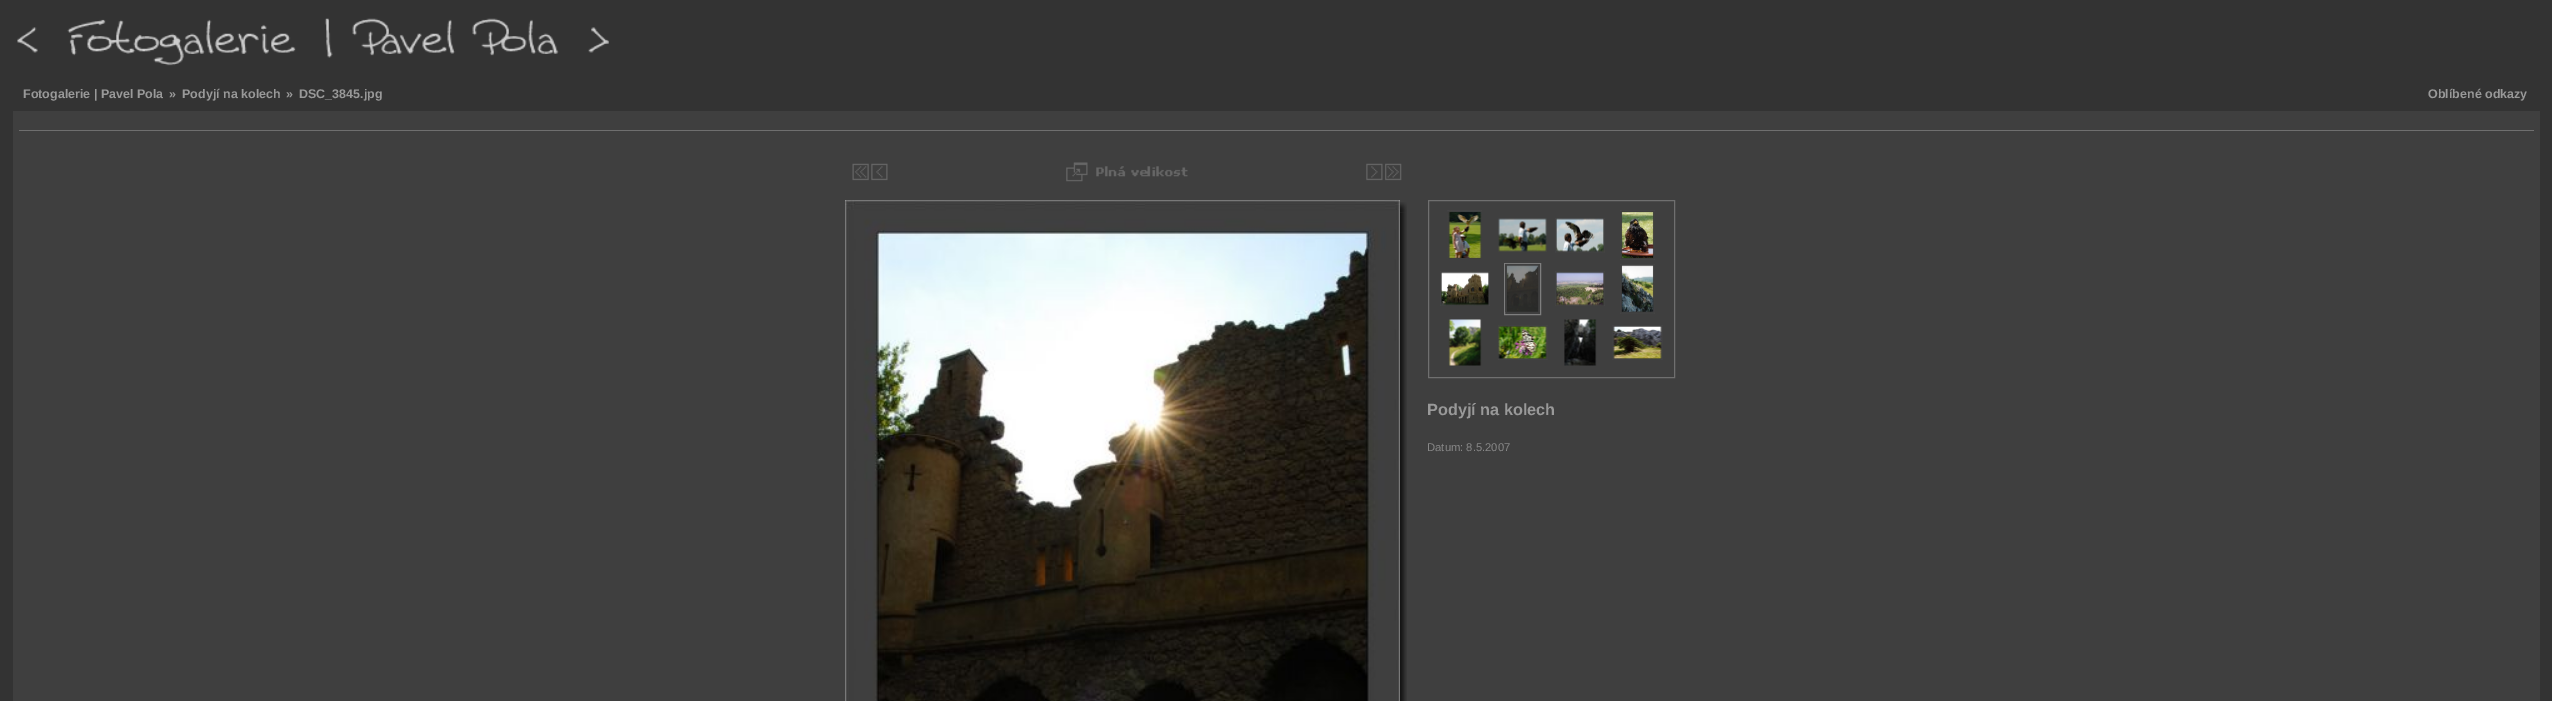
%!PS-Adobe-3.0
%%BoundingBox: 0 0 2552 701
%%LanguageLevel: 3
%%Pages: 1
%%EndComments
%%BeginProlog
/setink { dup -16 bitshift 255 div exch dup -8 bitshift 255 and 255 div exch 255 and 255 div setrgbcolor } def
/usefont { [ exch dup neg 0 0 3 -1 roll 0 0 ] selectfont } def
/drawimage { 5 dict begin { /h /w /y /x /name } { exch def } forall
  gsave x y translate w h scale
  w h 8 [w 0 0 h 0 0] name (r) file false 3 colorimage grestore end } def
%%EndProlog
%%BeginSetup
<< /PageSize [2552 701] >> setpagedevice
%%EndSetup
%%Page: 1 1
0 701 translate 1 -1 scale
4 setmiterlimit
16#333333 setink
0 0 2552 701 rectfill
(img1.raw) 17 18 592 48 drawimage
/LiberationSans-Bold 12.5 usefont
16#999999 setink
[
    [(Fotogalerie | Pavel Pola) 23 98]
    [(») 169 98]
    [(Podyjí na kolech) 182 98]
    [(») 286 98]
    [(DSC_3845.jpg) 299 98]
    [(Oblíbené odkazy) 2428 98]
] { aload pop moveto show } forall
16#3F3F3F setink
13 111 2527 590 rectfill
16#6F6F6F setink
19 130 2515 1 rectfill
(img2.raw) 852 163 17 18 drawimage
(img3.raw) 871 163 17 18 drawimage
(img4.raw) 1066 162 122 20 drawimage
(img5.raw) 1366 163 17 18 drawimage
(img6.raw) 1385 163 17 18 drawimage
(img7.raw) 845 200 555 501 drawimage
(img8.raw) 1400 202 7 11 drawimage
(img9.raw) 1400 212 7 489 drawimage
1428.5 200.5 246 177 rectstroke
(img10.raw) 1447 210 35 49 drawimage
(img11.raw) 1498 218 49 34 drawimage
(img12.raw) 1555 218 50 35 drawimage
(img13.raw) 1620 210 35 50 drawimage
(img14.raw) 1440 271 50 35 drawimage
16#7E7E7E setink
1504.5 263.5 36 51 rectstroke
(img15.raw) 1505 263 35 49 drawimage
(img16.raw) 1555 271 50 35 drawimage
(img17.raw) 1620 264 35 50 drawimage
(img18.raw) 1448 319 34 47 drawimage
(img19.raw) 1498 325 50 35 drawimage
(img20.raw) 1564 319 33 47 drawimage
(img21.raw) 1612 325 51 35 drawimage
/LiberationSans-Bold 16.25 usefont
16#999999 setink
1427 415 moveto (Podyjí na kolech) show
/LiberationSans-Regular 11.25 usefont
16#888888 setink
1427 451 moveto (Datum: 8.5.2007) show
showpage
%%EOF
